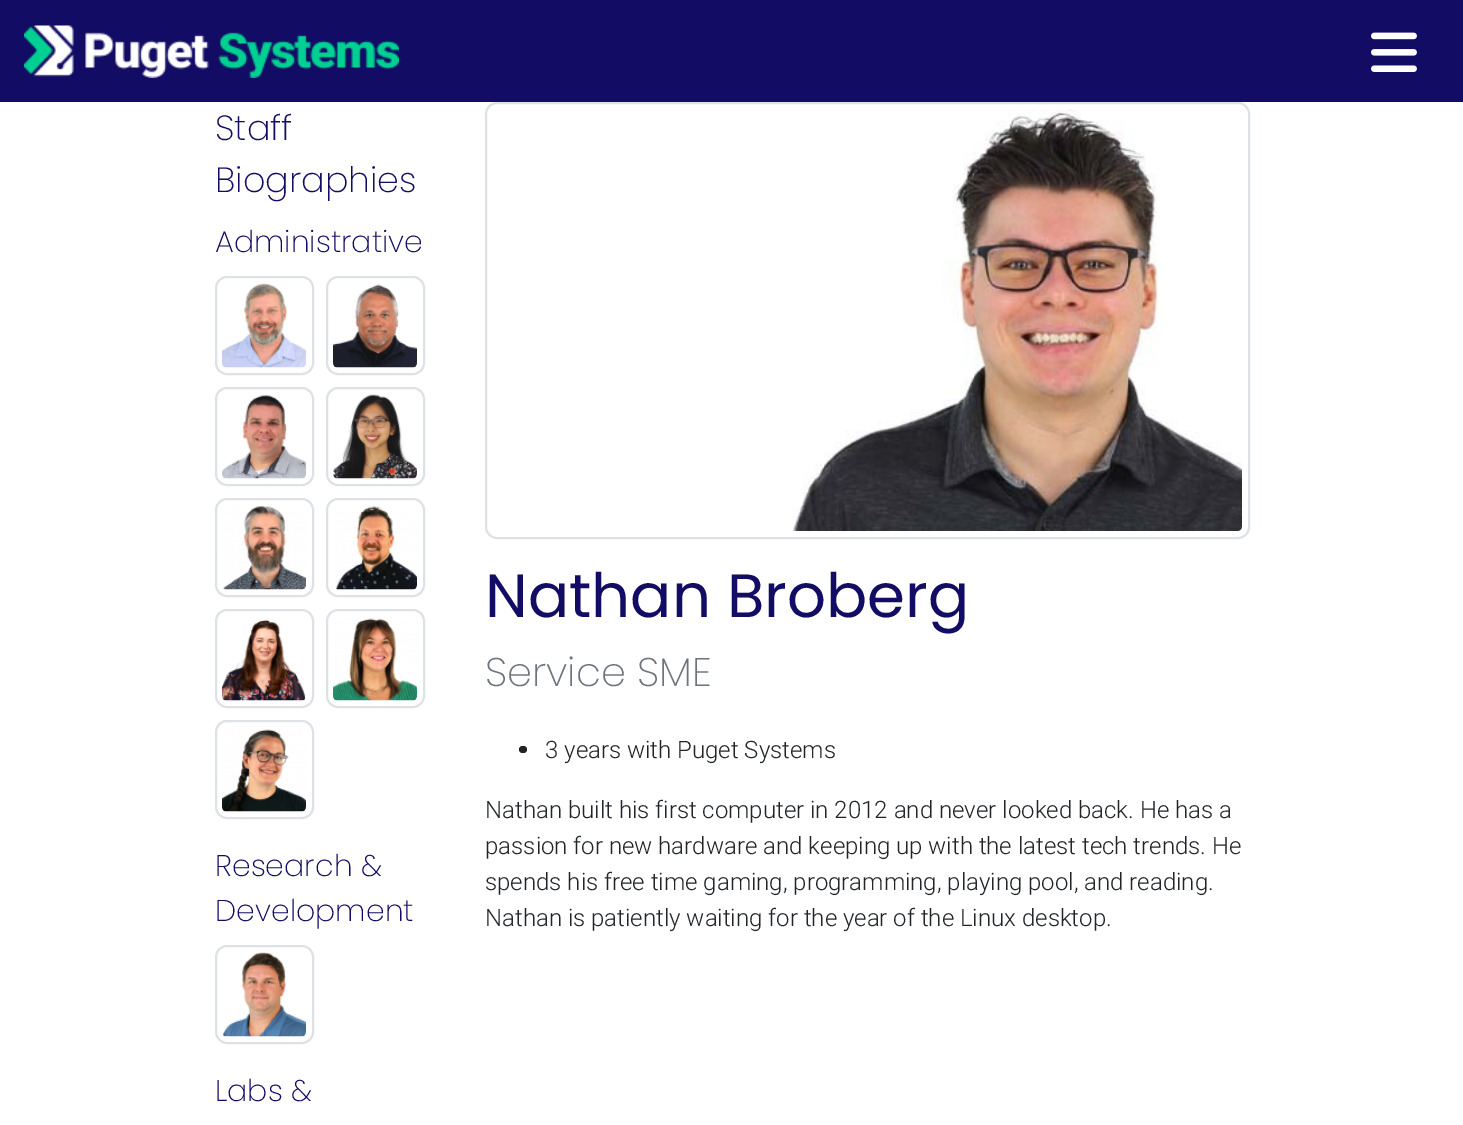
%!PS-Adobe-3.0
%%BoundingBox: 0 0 1463 1125
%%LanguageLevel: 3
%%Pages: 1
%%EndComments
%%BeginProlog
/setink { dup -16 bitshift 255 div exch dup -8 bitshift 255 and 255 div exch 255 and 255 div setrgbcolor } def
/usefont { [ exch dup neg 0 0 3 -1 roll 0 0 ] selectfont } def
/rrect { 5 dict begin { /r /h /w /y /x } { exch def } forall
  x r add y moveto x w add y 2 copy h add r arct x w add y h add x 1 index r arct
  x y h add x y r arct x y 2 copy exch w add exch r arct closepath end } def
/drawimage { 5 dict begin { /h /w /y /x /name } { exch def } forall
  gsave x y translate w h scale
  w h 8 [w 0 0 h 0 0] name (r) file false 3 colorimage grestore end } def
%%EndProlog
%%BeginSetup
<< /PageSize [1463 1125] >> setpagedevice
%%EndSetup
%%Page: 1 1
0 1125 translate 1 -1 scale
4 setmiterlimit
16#FFFFFF setink
0 0 1463 1125 rectfill
16#130C64 setink
0 0 1463 102 rectfill
(img1.raw) 24 25 375 53 drawimage
(img2.raw) 1371 32 46 40 drawimage
/Poppins-ExtraLight 35 usefont
215 140 moveto (Staff) show
215 192 moveto (Biographies) show
/Poppins-ExtraLight 30 usefont
215 252 moveto (Administrative) show
16#DEE2E6 setink
2 setlinewidth
216 277 97 97 11 rrect stroke
(img3.raw) 222 283 84 85 drawimage
327 277 97 97 11 rrect stroke
(img4.raw) 333 284 84 84 drawimage
216 388 97 97 11 rrect stroke
(img5.raw) 222 395 84 84 drawimage
327 388 97 97 11 rrect stroke
(img6.raw) 333 394 84 85 drawimage
216 499 97 97 11 rrect stroke
(img7.raw) 223 505 83 85 drawimage
327 499 97 97 11 rrect stroke
(img8.raw) 336 506 81 84 drawimage
216 610 97 97 11 rrect stroke
(img9.raw) 222 619 84 82 drawimage
327 610 97 97 11 rrect stroke
(img10.raw) 333 618 84 83 drawimage
216 721 97 97 11 rrect stroke
(img11.raw) 222 729 84 83 drawimage
16#130C64 setink
215 876 moveto (Research &) show
215 921 moveto (Development) show
16#DEE2E6 setink
216 946 97 97 11 rrect stroke
(img12.raw) 222 952 84 85 drawimage
16#130C64 setink
215 1101 moveto (Labs &) show
16#DEE2E6 setink
486 103 763 435 11 rrect stroke
(img13.raw) 792 109 450 422 drawimage
/Poppins-Regular 61 usefont
16#130C64 setink
485 617 moveto (Nathan Broberg) show
/Poppins-ExtraLight 40 usefont
16#6C757D setink
485 686 moveto (Service SME) show
16#212529 setink
519 746 8 7 3.5 rrect fill
/Roboto-Light 24 usefont
[
    [(3 years with Puget Systems) 545 758]
    [(Nathan built his first computer in 2012 and never looked back. He has a) 485 818]
    [(passion for new hardware and keeping up with the latest tech trends. He) 485 854]
    [(spends his free time gaming, programming, playing pool, and reading.) 485 890]
    [(Nathan is patiently waiting for the year of the Linux desktop.) 485 926]
] { aload pop moveto show } forall
showpage
%%EOF
